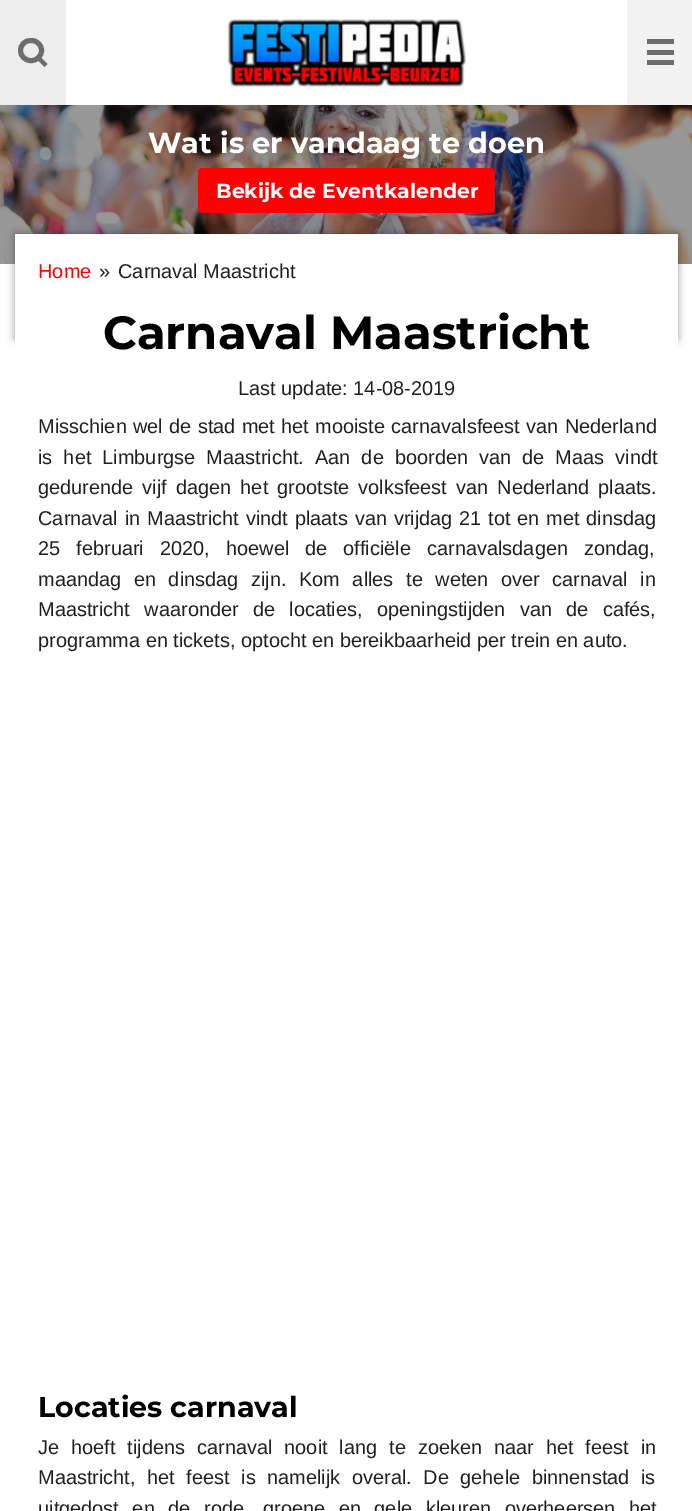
%!PS-Adobe-3.0
%%BoundingBox: 0 0 692 1511
%%LanguageLevel: 3
%%Pages: 1
%%EndComments
%%BeginProlog
/setink { dup -16 bitshift 255 div exch dup -8 bitshift 255 and 255 div exch 255 and 255 div setrgbcolor } def
/usefont { [ exch dup neg 0 0 3 -1 roll 0 0 ] selectfont } def
/setalpha { dup .setfillconstantalpha .setstrokeconstantalpha } def
/rrect { 5 dict begin { /r /h /w /y /x } { exch def } forall
  x r add y moveto x w add y 2 copy h add r arct x w add y h add x 1 index r arct
  x y h add x y r arct x y 2 copy exch w add exch r arct closepath end } def
/softshadow { 12 dict begin { /a /b /q /h /w /y /x } { exch def } forall gsave /was 0 def
  9 -2 -9 { dup b mul 4 div /e exch def 1 sub .425 mul 2.718 exch exp 1 add a .99 .min exch div /now exch def
    1 1 now sub 1 was sub div sub setalpha /was now def
    w h .min e 2 mul add 0 gt { x e sub y e sub w e 2 mul add h e 2 mul add
      q e add b .6 mul add w h .min 2 div e add .min 0 .max rrect fill } if } for grestore end } def
/drawimage { 5 dict begin { /h /w /y /x /name } { exch def } forall
  gsave x y translate w h scale
  w h 8 [w 0 0 h 0 0] name (r) file false 3 colorimage grestore end } def
%%EndProlog
%%BeginSetup
<< /PageSize [692 1511] /PageUsesTransparency true >> setpagedevice
%%EndSetup
%%Page: 1 1
0 .pushpdf14devicefilter
0 1511 translate 1 -1 scale
4 setmiterlimit
16#FFFFFF setink
0 0 692 1511 rectfill
16#EDEDED setink
0 0 66 105 rectfill
16#6D6D6D setink
5 setlinewidth
20.5 40.5 21 20 10 rrect stroke
38 54.5 moveto 47.5 64 lineto 44.5 67 lineto 35 57.5 lineto closepath fill
(img1.raw) 227 19 239 68 drawimage
[
    [627 0 65 105 16#F2F2F2]
    [647 50 27 5 16#6D6D6D]
    [647 39 27 5 16#6D6D6D]
    [647 60 27 5 16#6D6D6D]
] { aload pop setink rectfill } forall
(img2.raw) 0 105 692 159 drawimage
/Montserrat-Bold 28.8 usefont
16#FFFFFF setink
148 153 moveto (Wat is er vandaag te doen) show
16#FF0000 setink
198 168 297 45 4 rrect fill
/Montserrat-Bold 20.4 usefont
16#FFFFFF setink
216 198 moveto (Bekijk de Eventkalender) show
16#000000 setink
15 234 663 105 0 4 0.4 softshadow
16#FFFFFF setink
15 234 663 113 rectfill
/LiberationSans-Regular 19.95 usefont
16#FF0000 setink
38 278 moveto (Home) show
16#202020 setink
99 278 moveto (») show
118 278 moveto (Carnaval Maastricht) show
/Montserrat-Bold 46.5 usefont
16#000000 setink
103 349 moveto (Carnaval Maastricht) show
/LiberationSans-Regular 19.95 usefont
16#202020 setink
238 395 moveto (Last update: 14-08-2019) show
38 433 moveto 0.75 0 32 (Misschien wel de stad met het mooiste carnavalsfeest van Nederland) widthshow
38 464 moveto 5.5 0 32 (is het Limburgse Maastricht. Aan de boorden van de Maas vindt) widthshow
38 494 moveto 3.5 0 32 (gedurende vijf dagen het grootste volksfeest van Nederland plaats.) widthshow
38 525 moveto 1.25 0 32 (Carnaval in Maastricht vindt plaats van vrijdag 21 tot en met dinsdag) widthshow
38 555 moveto 10.5 0 32 (25 februari 2020, hoewel de officiële carnavalsdagen zondag,) widthshow
38 586 moveto 7 0 32 (maandag en dinsdag zijn. Kom alles te weten over carnaval in) widthshow
38 616 moveto 8.75 0 32 (Maastricht waaronder de locaties, openingstijden van de cafés,) widthshow
38 647 moveto (programma en tickets, optocht en bereikbaarheid per trein en auto.) show
/Montserrat-Bold 28.5 usefont
16#000000 setink
38 1417 moveto (Locaties carnaval) show
/LiberationSans-Regular 19.95 usefont
16#202020 setink
38 1454 moveto 6.4 0 32 (Je hoeft tijdens carnaval nooit lang te zoeken naar het feest in) widthshow
38 1484 moveto 6 0 32 (Maastricht, het feest is namelijk overal. De gehele binnenstad is) widthshow
38 1515 moveto 8 0 32 (uitgedost en de rode, groene en gele kleuren overheersen het) widthshow
.poppdf14devicefilter showpage
%%EOF
